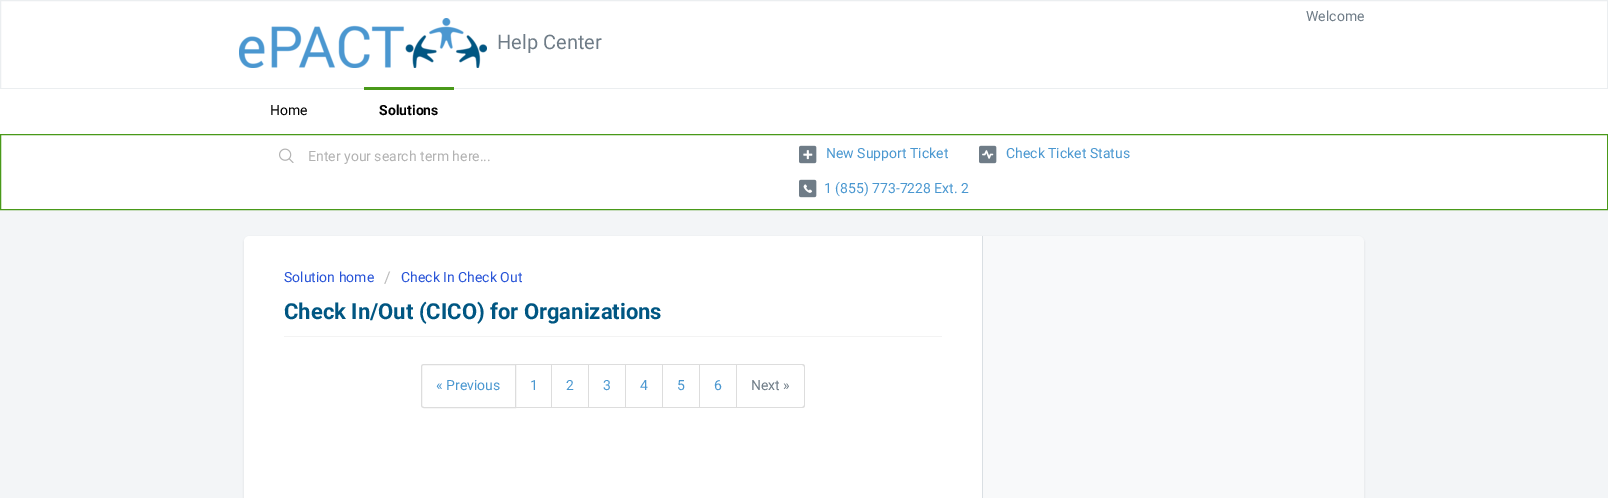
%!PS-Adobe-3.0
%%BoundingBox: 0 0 1608 498
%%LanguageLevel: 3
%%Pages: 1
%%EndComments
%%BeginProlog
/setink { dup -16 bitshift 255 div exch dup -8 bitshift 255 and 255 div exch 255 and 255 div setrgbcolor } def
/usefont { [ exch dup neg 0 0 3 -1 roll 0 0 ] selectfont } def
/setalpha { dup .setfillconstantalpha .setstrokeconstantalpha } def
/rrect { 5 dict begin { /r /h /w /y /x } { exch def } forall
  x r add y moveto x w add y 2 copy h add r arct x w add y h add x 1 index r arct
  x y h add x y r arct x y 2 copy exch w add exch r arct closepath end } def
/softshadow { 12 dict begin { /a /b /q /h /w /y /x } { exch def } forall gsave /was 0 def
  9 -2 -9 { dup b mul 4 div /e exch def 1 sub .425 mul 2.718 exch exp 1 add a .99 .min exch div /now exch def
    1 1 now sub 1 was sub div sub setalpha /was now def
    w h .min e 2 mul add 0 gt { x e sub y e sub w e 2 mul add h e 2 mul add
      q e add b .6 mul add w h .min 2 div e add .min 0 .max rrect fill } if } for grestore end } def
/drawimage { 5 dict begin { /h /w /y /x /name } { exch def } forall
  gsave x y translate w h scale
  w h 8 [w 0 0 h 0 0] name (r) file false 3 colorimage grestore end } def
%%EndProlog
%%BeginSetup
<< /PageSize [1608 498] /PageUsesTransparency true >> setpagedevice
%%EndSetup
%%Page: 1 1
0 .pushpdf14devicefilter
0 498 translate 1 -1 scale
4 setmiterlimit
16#F3F5F7 setink
0 0 1608 498 rectfill
16#FFFFFF setink
0.5 0.5 moveto 1607.5 0.5 lineto 1607.5 88.5 lineto 0.5 88.5 lineto closepath gsave fill grestore
16#EBEEF0 setink
stroke
/Roboto-Regular 14 usefont
16#6F7C87 setink
1306 21 moveto (Welcome) show
(img1.raw) 239 18 248 50 drawimage
/Roboto-Regular 20 usefont
497 49 moveto (Help Center) show
16#FFFFFF setink
0 89 1608 45 rectfill
/Roboto-Regular 14 usefont
16#000000 setink
270 115 moveto (Home) show
16#499919 setink
364 87 90 3 rectfill
/Roboto-Bold 14 usefont
16#000000 setink
379 115 moveto (Solutions) show
16#FFFFFF setink
0.5 134.5 moveto 1607.5 134.5 lineto 1607.5 209.5 lineto 0.5 209.5 lineto closepath gsave fill grestore
16#499919 setink
stroke
(img2.raw) 279 148 15 15 drawimage
/Roboto-Regular 14 usefont
16#B2B2B2 setink
308 161 moveto (Enter your search term here...) show
(img3.raw) 799 145 18 19 drawimage
16#4A97D0 setink
826 158 moveto (New Support Ticket) show
(img4.raw) 979 145 18 19 drawimage
1006 158 moveto (Check Ticket Status) show
(img5.raw) 799 179 18 19 drawimage
824 193 moveto (1 \(855\) 773-7228 Ext. 2) show
16#3F3F44 setink
244 237 1120 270 6 1 0.15 softshadow
16#F8F9FA setink
244 236 1120 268 6 rrect fill
16#FFFFFF setink
250 236 moveto 983 236 lineto 983 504 lineto 250 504 lineto 246.5 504 244 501.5 244 498 curveto 244 242 lineto 244 238.5 246.5 236 250 236 curveto closepath fill
16#DADFE3 setink
982 236 1 262 rectfill
16#2753D7 setink
284 282 moveto (Solution home) show
/Roboto-Regular 16 usefont
16#BBBBBB setink
384 283 moveto (/) show
/Roboto-Regular 14 usefont
16#2753D7 setink
401 282 moveto (Check In Check Out) show
/Roboto-Bold 22 usefont
16#005682 setink
284 319 moveto (Check In/Out \(CICO\) for Organizations) show
16#F3F3F3 setink
284 336 658 1 rectfill
16#DDDDDD setink
424 364.5 moveto 515.5 364.5 lineto 515.5 407.5 lineto 424 407.5 lineto 422.5 407.5 421.5 406.5 421.5 405 curveto 421.5 367 lineto 421.5 365.5 422.5 364.5 424 364.5 curveto closepath stroke
/Roboto-Regular 14 usefont
16#4A97D0 setink
436 390 moveto (« Previous) show
[
    [516 364 221 1 16#DDDDDD]
    [551 364 1 44 16#DDDDDD]
    [516 407 36 1 16#DDDDDD]
] { aload pop setink rectfill } forall
16#4A97D0 setink
530 390 moveto (1) show
16#DDDDDD setink
588 364 1 44 rectfill
552 407 37 1 rectfill
16#4A97D0 setink
566 390 moveto (2) show
16#DDDDDD setink
625 364 1 44 rectfill
589 407 37 1 rectfill
16#4A97D0 setink
603 390 moveto (3) show
16#DDDDDD setink
662 364 1 44 rectfill
626 407 37 1 rectfill
16#4A97D0 setink
640 390 moveto (4) show
16#DDDDDD setink
699 364 1 44 rectfill
663 407 37 1 rectfill
16#4A97D0 setink
677 390 moveto (5) show
16#DDDDDD setink
736 364 1 44 rectfill
700 407 37 1 rectfill
16#4A97D0 setink
714 390 moveto (6) show
16#DDDDDD setink
737 364 moveto 802 364 lineto 804 364 805 365 805 367 curveto 805 405 lineto 805 407 804 408 802 408 curveto 737 408 lineto closepath 737 365 moveto 802 365 lineto 803 365 804 366 804 367 curveto 804 405 lineto 804 406 803 407 802 407 curveto 737 407 lineto closepath eofill
16#6F7C87 setink
751 390 moveto (Next ») show
.poppdf14devicefilter showpage
%%EOF
